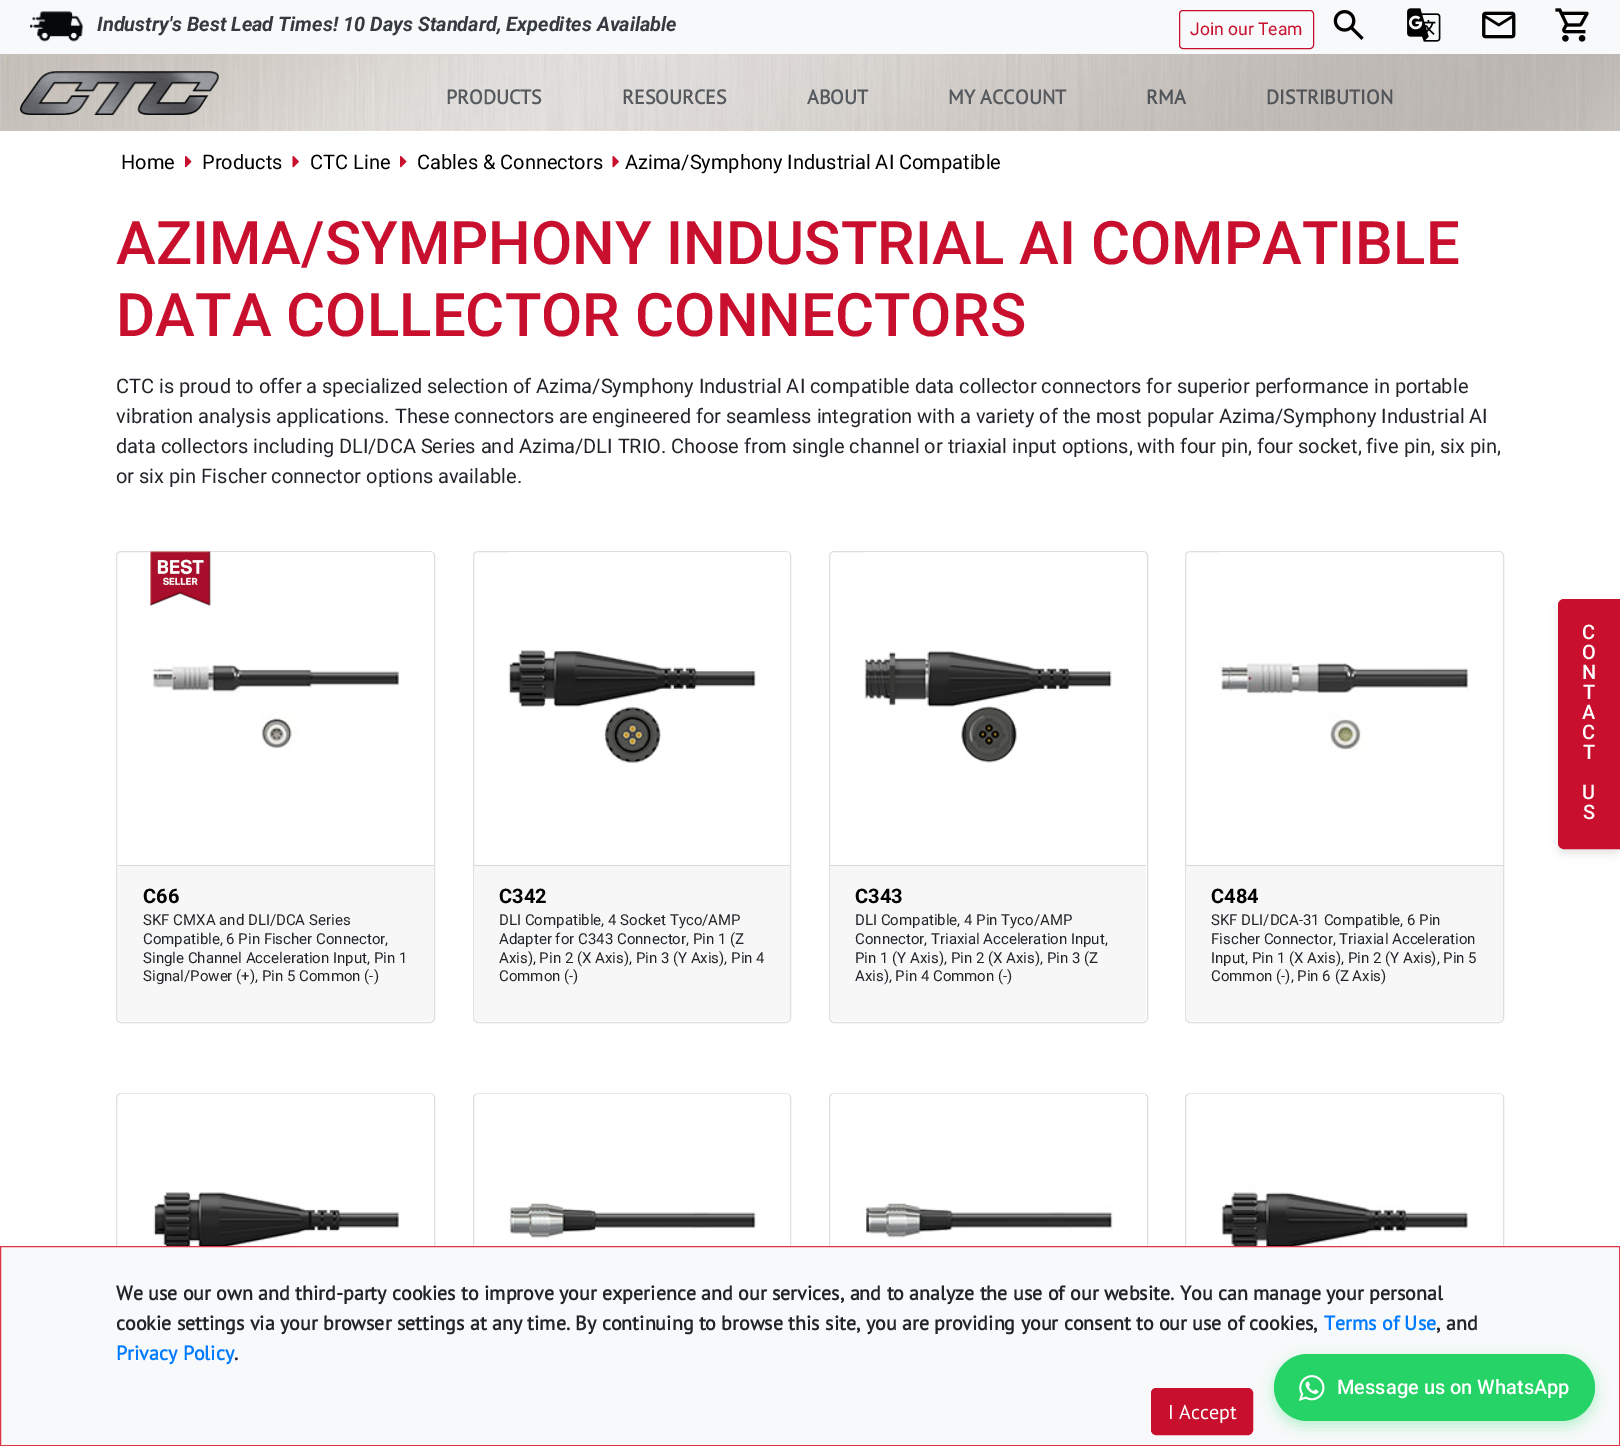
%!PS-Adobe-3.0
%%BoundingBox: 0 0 1620 1446
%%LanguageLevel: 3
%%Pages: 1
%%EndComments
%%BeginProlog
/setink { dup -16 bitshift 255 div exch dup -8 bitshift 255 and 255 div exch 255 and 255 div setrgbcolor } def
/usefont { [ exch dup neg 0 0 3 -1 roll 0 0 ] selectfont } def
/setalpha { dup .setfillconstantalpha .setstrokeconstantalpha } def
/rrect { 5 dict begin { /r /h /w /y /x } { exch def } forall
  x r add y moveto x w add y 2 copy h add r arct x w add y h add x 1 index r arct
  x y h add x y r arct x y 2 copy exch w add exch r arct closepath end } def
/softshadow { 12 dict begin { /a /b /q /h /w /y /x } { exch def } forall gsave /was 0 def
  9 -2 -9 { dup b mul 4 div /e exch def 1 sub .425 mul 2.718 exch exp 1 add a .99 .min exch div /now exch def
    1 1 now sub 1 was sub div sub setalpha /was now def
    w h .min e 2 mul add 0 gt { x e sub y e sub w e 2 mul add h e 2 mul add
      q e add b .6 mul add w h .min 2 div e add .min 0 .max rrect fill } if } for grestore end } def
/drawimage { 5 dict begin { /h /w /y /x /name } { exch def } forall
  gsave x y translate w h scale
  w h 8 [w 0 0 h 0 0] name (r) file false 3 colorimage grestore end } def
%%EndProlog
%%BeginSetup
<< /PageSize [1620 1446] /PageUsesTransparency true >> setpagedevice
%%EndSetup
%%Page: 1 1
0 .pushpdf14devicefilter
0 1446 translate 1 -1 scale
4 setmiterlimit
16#FFFFFF setink
0 0 1620 1446 rectfill
16#F8F9FA setink
0 0 1620 54 rectfill
(img1.raw) 30 11 53 31 drawimage
/Roboto-BoldItalic 20 usefont
16#343A40 setink
97 31 moveto (Industry's Best Lead Times! 10 Days Standard, Expedites Available) show
16#C8102E setink
1179.5 10.5 134 38 3.5 rrect stroke
/Roboto-Regular 17.5 usefont
1190 35 moveto (Join our Team) show
(img2.raw) 1333 10 31 30 drawimage
(img3.raw) 1407 8 34 34 drawimage
(img4.raw) 1482 11 34 28 drawimage
(img5.raw) 1555 8 34 34 drawimage
(img6.raw) 0 54 1620 77 drawimage
(img7.raw) 20 71 199 44 drawimage
/PTSans-Bold 20 usefont
16#565A5F setink
[
    [(PRODUCTS) 446 104]
    [(RESOURCES) 622 104]
    [(ABOUT) 807 104]
    [(MY ACCOUNT) 948 104]
] { aload pop moveto show } forall
16#515559 setink
1146 104 moveto (RMA) show
1266 104 moveto (DISTRIBUTION) show
/Roboto-Regular 20 usefont
16#000000 setink
121 169 moveto (Home) show
(img8.raw) 185 155 7 13 drawimage
202 169 moveto (Products) show
(img9.raw) 292 155 7 13 drawimage
310 169 moveto (CTC Line) show
(img8.raw) 400 155 7 13 drawimage
417 169 moveto (Cables & Connectors) show
(img9.raw) 612 155 7 13 drawimage
625 169 moveto (Azima/Symphony Industrial AI Compatible) show
/Roboto-Medium 60 usefont
16#C8102E setink
116 264 moveto (AZIMA/SYMPHONY INDUSTRIAL AI COMPATIBLE) show
116 336 moveto (DATA COLLECTOR CONNECTORS) show
/Roboto-Regular 20 usefont
16#212529 setink
[
    [(CTC is proud to offer a specialized selection of Azima/Symphony Industrial AI compatible data collector connectors for superior performance in portable) 116 393]
    [(vibration analysis applications. These connectors are engineered for seamless integration with a variety of the most popular Azima/Symphony Industrial AI) 116 423]
    [(data collectors including DLI/DCA Series and Azima/DLI TRIO. Choose from single channel or triaxial input options, with four pin, four socket, five pin, six pin,) 116 453]
    [(or six pin Fischer connector options available.) 116 483]
] { aload pop moveto show } forall
16#DFDFDF setink
116.5 551.5 318 471 4.5 rrect stroke
(img11.raw) 152 552 281 198 drawimage
(img10.raw) 149 551 62 55 drawimage
16#F7F7F7 setink
118 865 moveto 434 865 lineto 434 1017 lineto 434 1019 432 1021 430 1021 curveto 122 1021 lineto 120 1021 118 1019 118 1017 curveto closepath fill
16#D8D8D8 setink
118 865 316 1 rectfill
/Roboto-Bold 20 usefont
16#000000 setink
143 903 moveto (C66) show
/Roboto-Regular 15 usefont
16#212529 setink
[
    [(SKF CMXA and DLI/DCA Series) 143 925]
    [(Compatible, 6 Pin Fischer Connector,) 143 944]
    [(Single Channel Acceleration Input, Pin 1) 143 963]
    [(Signal/Power \(+\), Pin 5 Common \(-\)) 143 981]
] { aload pop moveto show } forall
16#DFDFDF setink
473.5 551.5 317 471 4.5 rrect stroke
(img12.raw) 508 552 281 212 drawimage
16#F7F7F7 setink
474 865 moveto 790 865 lineto 790 1017 lineto 790 1019 788 1021 786 1021 curveto 478 1021 lineto 476 1021 474 1019 474 1017 curveto closepath fill
16#D8D8D8 setink
474 865 316 1 rectfill
/Roboto-Bold 20 usefont
16#000000 setink
499 903 moveto (C342) show
/Roboto-Regular 15 usefont
16#212529 setink
[
    [(DLI Compatible, 4 Socket Tyco/AMP) 499 925]
    [(Adapter for C343 Connector, Pin 1 \(Z) 499 944]
    [(Axis\), Pin 2 \(X Axis\), Pin 3 \(Y Axis\), Pin 4) 499 963]
    [(Common \(-\)) 499 981]
] { aload pop moveto show } forall
16#DFDFDF setink
829.5 551.5 318 471 4.5 rrect stroke
(img13.raw) 864 552 281 211 drawimage
16#F7F7F7 setink
830 865 moveto 1146 865 lineto 1146 1017 lineto 1146 1019 1144 1021 1142 1021 curveto 834 1021 lineto 832 1021 830 1019 830 1017 curveto closepath fill
16#D8D8D8 setink
830 865 316 1 rectfill
/Roboto-Bold 20 usefont
16#000000 setink
855 903 moveto (C343) show
/Roboto-Regular 15 usefont
16#212529 setink
[
    [(DLI Compatible, 4 Pin Tyco/AMP) 855 925]
    [(Connector, Triaxial Acceleration Input,) 855 944]
    [(Pin 1 \(Y Axis\), Pin 2 \(X Axis\), Pin 3 \(Z) 855 963]
    [(Axis\), Pin 4 Common \(-\)) 855 981]
] { aload pop moveto show } forall
16#DFDFDF setink
1185.5 551.5 318 471 4.5 rrect stroke
(img14.raw) 1219 552 282 201 drawimage
16#F7F7F7 setink
1186 865 moveto 1503 865 lineto 1503 1017 lineto 1503 1019 1501 1021 1499 1021 curveto 1190 1021 lineto 1188 1021 1186 1019 1186 1017 curveto closepath fill
16#D8D8D8 setink
1186 865 317 1 rectfill
/Roboto-Bold 20 usefont
16#000000 setink
1211 903 moveto (C484) show
/Roboto-Regular 15 usefont
16#212529 setink
[
    [(SKF DLI/DCA-31 Compatible, 6 Pin) 1211 925]
    [(Fischer Connector, Triaxial Acceleration) 1211 944]
    [(Input, Pin 1 \(X Axis\), Pin 2 \(Y Axis\), Pin 5) 1211 963]
    [(Common \(-\), Pin 6 \(Z Axis\)) 1211 981]
] { aload pop moveto show } forall
16#DFDFDF setink
116.5 1093.5 318 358 4.5 rrect stroke
(img15.raw) 120 1093 313 153 drawimage
473.5 1093.5 317 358 4.5 rrect stroke
(img16.raw) 476 1093 313 153 drawimage
829.5 1093.5 318 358 4.5 rrect stroke
(img17.raw) 832 1093 313 153 drawimage
1185.5 1093.5 318 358 4.5 rrect stroke
(img18.raw) 1189 1093 313 153 drawimage
16#000000 setink
1558 604 62 250 6 4 0.1 softshadow
16#C8102E setink
1564 599.5 moveto 1619.5 599.5 lineto 1619.5 848.5 lineto 1564 848.5 lineto 1561 848.5 1558.5 846 1558.5 843 curveto 1558.5 605 lineto 1558.5 602 1561 599.5 1564 599.5 curveto closepath gsave fill grestore
stroke
/Roboto-Medium 20 usefont
16#FFFFFF setink
[
    [(C) 1582 639]
    [(O) 1582 659]
    [(N) 1582 679]
    [(T) 1583 699]
    [(A) 1582 719]
    [(C) 1582 739]
    [(T) 1583 759]
    [(U) 1582 799]
    [(S) 1583 819]
] { aload pop moveto show } forall
16#F8F9FA setink
0.5 1246.5 moveto 1619.5 1246.5 lineto 1619.5 1445.5 lineto 0.5 1445.5 lineto closepath gsave fill grestore
16#DC3545 setink
stroke
/PTSans-Bold 20 usefont
16#212529 setink
116 1300 moveto (We use our own and third-party cookies to improve your experience and our services, and to analyze the use of our website. You can manage your personal) show
116 1330 moveto (cookie settings via your browser settings at any time. By continuing to browse this site, you are providing your consent to our use of cookies,) show
16#007BFF setink
1324 1330 moveto (Terms of Use) show
16#212529 setink
1436 1330 moveto (, and) show
16#007BFF setink
116 1360 moveto (Privacy Policy) show
16#212529 setink
234 1360 moveto (.) show
16#C8102E setink
1151.5 1388.5 101 46 4.5 rrect gsave fill grestore
stroke
/PTSans-Regular 20 usefont
16#FFFFFF setink
1168 1419 moveto (I Accept) show
16#25D366 setink
1274 1359 321 67 33.5 7.5 0.3 softshadow
1274 1354 321 67 33.5 rrect fill
(img19.raw) 1298 1375 27 26 drawimage
/Roboto-Medium 20 usefont
16#FFFFFF setink
1337 1394 moveto (Message us on WhatsApp) show
.poppdf14devicefilter showpage
%%EOF
